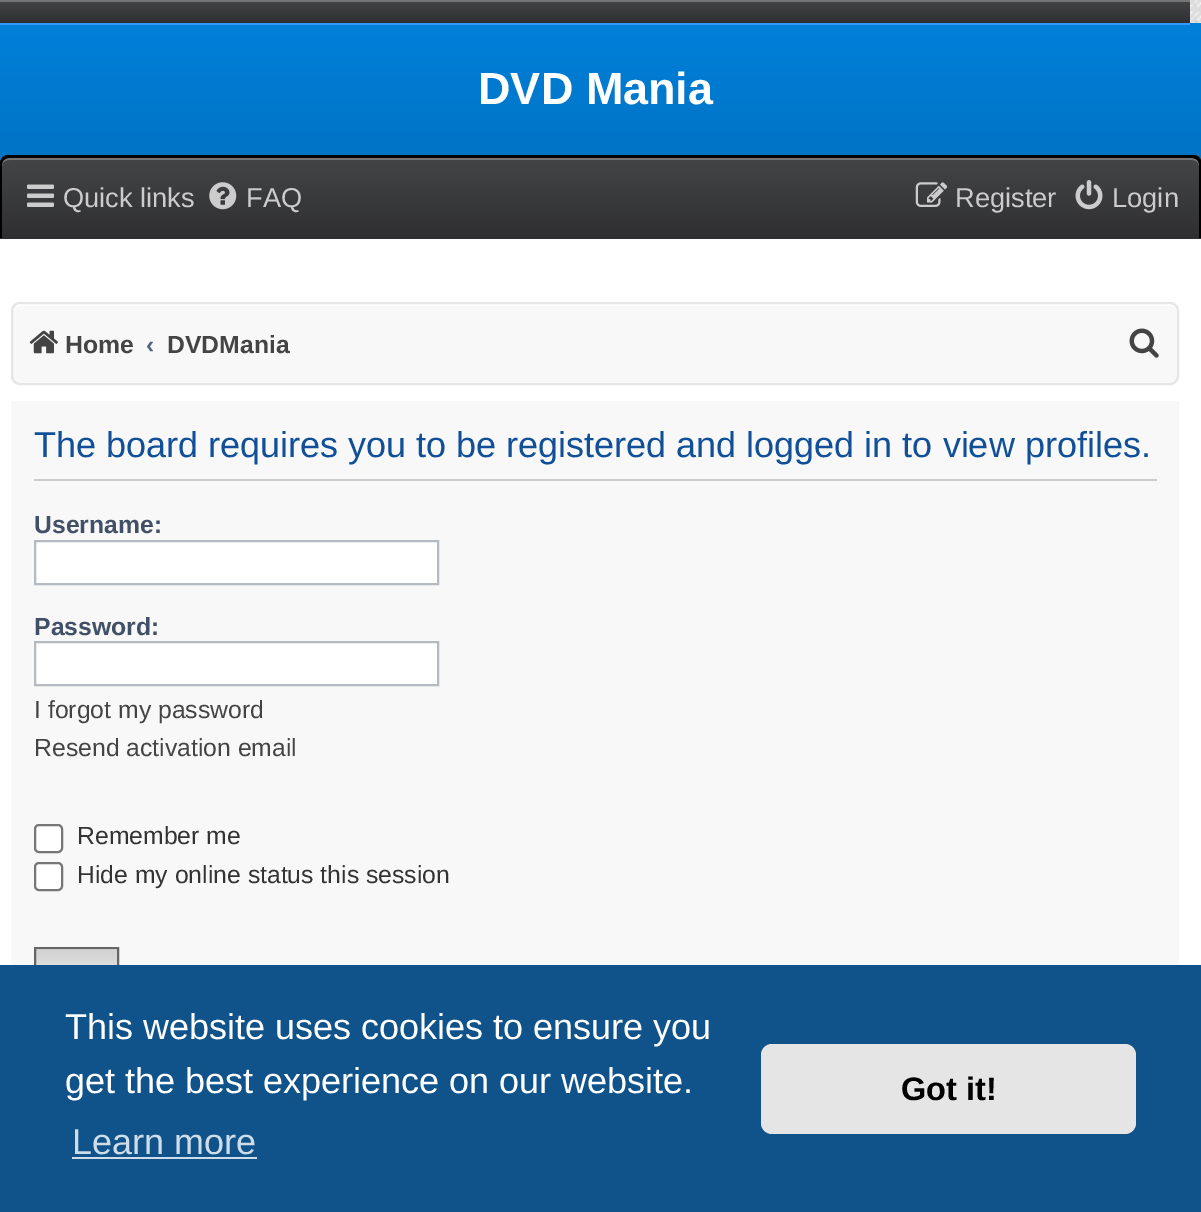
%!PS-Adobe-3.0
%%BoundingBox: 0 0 1201 1212
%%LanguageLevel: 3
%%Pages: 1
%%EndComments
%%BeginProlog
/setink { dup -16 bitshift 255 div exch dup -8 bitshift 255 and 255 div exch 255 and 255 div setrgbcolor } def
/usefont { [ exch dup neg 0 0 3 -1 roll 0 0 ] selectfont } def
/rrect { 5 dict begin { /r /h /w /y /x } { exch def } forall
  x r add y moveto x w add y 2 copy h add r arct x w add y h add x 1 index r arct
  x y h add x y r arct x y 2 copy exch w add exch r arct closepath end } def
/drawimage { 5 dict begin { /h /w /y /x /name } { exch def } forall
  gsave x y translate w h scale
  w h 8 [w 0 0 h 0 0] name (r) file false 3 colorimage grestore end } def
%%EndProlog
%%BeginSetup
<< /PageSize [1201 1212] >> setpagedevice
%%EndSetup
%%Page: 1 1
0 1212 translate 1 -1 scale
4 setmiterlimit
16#FFFFFF setink
0 0 1201 1212 rectfill
(img1.raw) 1190 0 11 23 drawimage
gsave 0 23 moveto 1201 23 lineto 1201 164 lineto 0 164 lineto closepath clip newpath
<< /ShadingType 2 /ColorSpace /DeviceRGB /Coords [595 22 595 239] /Extend [true true] /Function << /FunctionType 2 /Domain [0 1] /C0 [0 0.502 0.855] /C1 [0 0.427 0.725] /N 1 >> >> shfill grestore
gsave 0 2 moveto 1190 2 lineto 1190 23 lineto 0 23 lineto closepath clip newpath
<< /ShadingType 2 /ColorSpace /DeviceRGB /Coords [590 0 590 23] /Extend [true true] /Function << /FunctionType 2 /Domain [0 1] /C0 [0.267 0.271 0.278] /C1 [0.184 0.184 0.192] /N 1 >> >> shfill grestore
16#757575 setink
0 0 1190 2 rectfill
16#3399FF setink
0 23 1190 2 rectfill
/LiberationSans-Bold 45 usefont
16#FFFFFF setink
478 104 moveto (DVD Mania) show
gsave
9 155 moveto 1193 155 lineto 1198 155 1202 159 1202 164 curveto 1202 239 lineto 0 239 lineto 0 164 lineto 0 159 4 155 9 155 curveto closepath clip newpath
gsave 0 155 moveto 1201 155 lineto 1201 158 lineto 0 158 lineto closepath clip newpath
<< /ShadingType 2 /ColorSpace /DeviceRGB /Coords [601 76 601 158] /Extend [true true] /Function << /FunctionType 2 /Domain [0 1] /C0 [0.267 0.271 0.278] /C1 [0.184 0.184 0.192] /N 1 >> >> shfill grestore
gsave 0 158 moveto 1201 158 lineto 1201 239 lineto 0 239 lineto closepath clip newpath
<< /ShadingType 2 /ColorSpace /DeviceRGB /Coords [601 157 601 239] /Extend [true true] /Function << /FunctionType 2 /Domain [0 1] /C0 [0.267 0.271 0.278] /C1 [0.184 0.184 0.192] /N 1 >> >> shfill grestore
grestore
16#757575 setink
9 160 moveto 1192 160 lineto 1196 160 1199 163 1199 166 curveto 1199 162 1197 158 1192 158 curveto 9 158 lineto 4 158 2 162 2 166 curveto 2 163 5 160 9 160 curveto closepath fill
16#000000 setink
9 155 moveto 1192 155 lineto 1197 155 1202 159 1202 164 curveto 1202 238 lineto 0 238 lineto 0 164 lineto 0 159 4 155 9 155 curveto closepath 9 158 moveto 1192 158 lineto 1196 158 1199 161 1199 164 curveto 1199 238 lineto 2 238 lineto 2 164 lineto 2 161 5 158 9 158 curveto closepath eofill
(img2.raw) 27 184 27 23 drawimage
/LiberationSans-Regular 27.25 usefont
16#CCCCCC setink
63 207 moveto (Quick links) show
(img3.raw) 209 182 28 28 drawimage
246 207 moveto (FAQ) show
(img4.raw) 915 182 33 25 drawimage
955 207 moveto (Register) show
(img5.raw) 1075 180 28 30 drawimage
1112 207 moveto (Login) show
16#F8F8F8 setink
11 302 1168 83 9 rrect fill
16#FFFFFF setink
20 306 moveto 1170 306 lineto 1174 306 1177 309 1177 313 curveto 1177 311 lineto 1177 307 1174 304 1170 304 curveto 21 304 lineto 17 304 14 307 14 311 curveto 14 313 lineto 14 309 17 306 20 306 curveto closepath fill
16#E6E6E6 setink
2 setlinewidth
12 303 1166 81 8 rrect stroke
(img6.raw) 29 330 29 24 drawimage
/LiberationSans-Bold 24.75 usefont
16#444444 setink
65 353 moveto (Home) show
16#536482 setink
146 353 moveto (‹) show
16#444444 setink
167 353 moveto (DVDMania) show
(img7.raw) 1129 328 30 30 drawimage
16#F8F8F8 setink
11 401 1168 564 rectfill
16#CCCCCC setink
34 479 1123 2 rectfill
/LiberationSans-Regular 36 usefont
16#115098 setink
34 457 moveto (The board requires you to be registered and logged in to view profiles.) show
/LiberationSans-Bold 24.75 usefont
16#425067 setink
34 533 moveto (Username:) show
16#FFFFFF setink
35 541 moveto 438 541 lineto 438 584 lineto 35 584 lineto closepath gsave fill grestore
16#B4BAC0 setink
stroke
16#425067 setink
34 635 moveto (Password:) show
16#FFFFFF setink
35 642 moveto 438 642 lineto 438 685 lineto 35 685 lineto closepath gsave fill grestore
16#B4BAC0 setink
stroke
/LiberationSans-Regular 24.75 usefont
16#444444 setink
34 718 moveto (I forgot my password) show
34 756 moveto (Resend activation email) show
16#FFFFFF setink
35 825 27 27 4 rrect gsave fill grestore
16#767676 setink
stroke
16#333333 setink
77 844 moveto (Remember me) show
16#FFFFFF setink
35 863 27 27 4 rrect gsave fill grestore
16#767676 setink
stroke
16#333333 setink
77 883 moveto (Hide my online status this session) show
16#EFEFEF setink
36 949 81 1 rectfill
gsave 36 950 moveto 117 950 lineto 117 965 lineto 36 965 lineto closepath clip newpath
<< /ShadingType 2 /ColorSpace /DeviceRGB /Coords [77 950 77 992] /Extend [true true] /Function << /FunctionType 2 /Domain [0 1] /C0 [0.824 0.824 0.824] /C1 [0.937 0.937 0.937] /N 1 >> >> shfill grestore
16#666666 setink
35 948 83 46 rectstroke
16#0F538A setink
0 965 1201 247 rectfill
/LiberationSans-Regular 36 usefont
16#FFFFFF setink
65 1039 moveto (This website uses cookies to ensure you) show
65 1093 moveto (get the best experience on our website.) show
16#CFDDE8 setink
72 1154 moveto (Learn more) show
72 1157 185 2 rectfill
16#E5E5E5 setink
761 1044 375 90 11 rrect fill
/LiberationSans-Bold 32.5 usefont
16#000000 setink
901 1100 moveto (Got it!) show
showpage
%%EOF
